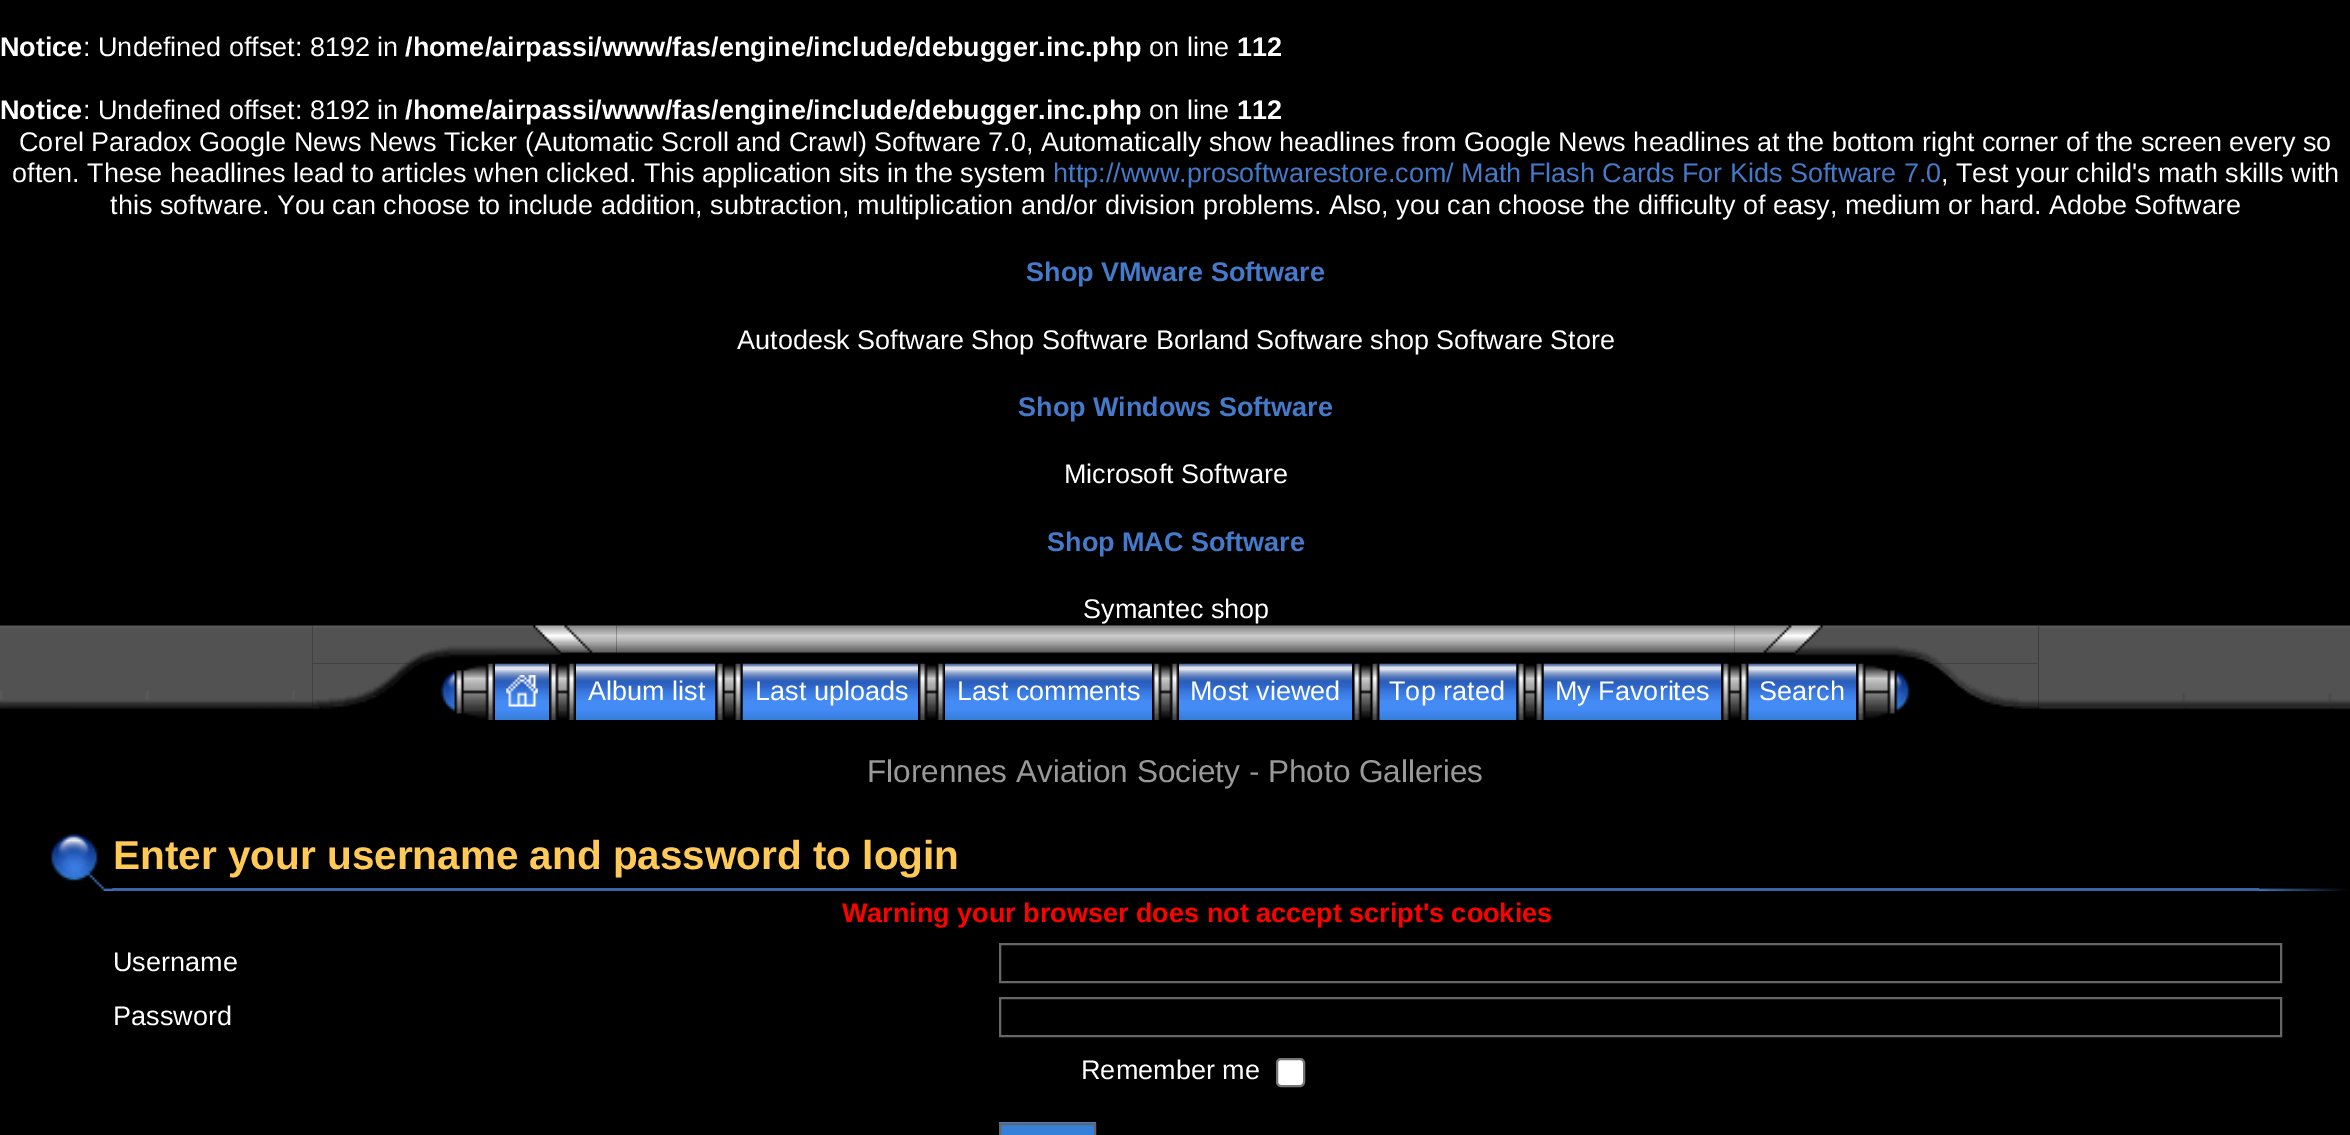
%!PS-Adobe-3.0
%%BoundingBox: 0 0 2350 1135
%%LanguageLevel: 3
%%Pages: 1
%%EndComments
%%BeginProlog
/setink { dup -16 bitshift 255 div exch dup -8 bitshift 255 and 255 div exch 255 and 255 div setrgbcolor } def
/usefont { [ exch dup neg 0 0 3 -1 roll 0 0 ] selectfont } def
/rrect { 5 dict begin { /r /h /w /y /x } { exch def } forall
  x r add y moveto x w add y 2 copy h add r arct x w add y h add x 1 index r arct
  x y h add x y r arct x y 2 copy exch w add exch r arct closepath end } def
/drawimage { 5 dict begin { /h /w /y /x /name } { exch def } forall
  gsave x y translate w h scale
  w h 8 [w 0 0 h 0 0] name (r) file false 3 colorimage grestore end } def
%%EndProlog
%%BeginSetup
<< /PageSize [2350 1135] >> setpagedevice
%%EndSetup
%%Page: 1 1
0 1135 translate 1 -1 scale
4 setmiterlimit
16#000000 setink
0 0 2350 1135 rectfill
16#3966A9 setink
112 888 2147 3 rectfill
/LiberationSans-Bold 27 usefont
16#FFFFFF setink
0 56 moveto (Notice) show
/LiberationSans-Regular 27 usefont
83 56 moveto (: Undefined offset: 8192 in) show
/LiberationSans-Bold 27 usefont
405 56 moveto (/home/airpassi/www/fas/engine/include/debugger.inc.php) show
/LiberationSans-Regular 27 usefont
1149 56 moveto (on line) show
/LiberationSans-Bold 27 usefont
1237 56 moveto (112) show
0 119 moveto (Notice) show
/LiberationSans-Regular 27 usefont
83 119 moveto (: Undefined offset: 8192 in) show
/LiberationSans-Bold 27 usefont
405 119 moveto (/home/airpassi/www/fas/engine/include/debugger.inc.php) show
/LiberationSans-Regular 27 usefont
1149 119 moveto (on line) show
/LiberationSans-Bold 27 usefont
1237 119 moveto (112) show
/LiberationSans-Regular 27 usefont
19 151 moveto (Corel Paradox Google News News Ticker \(Automatic Scroll and Crawl\) Software 7.0, Automatically show headlines from Google News headlines at the bottom right corner of the screen every so) show
12 182 moveto (often. These headlines lead to articles when clicked. This application sits in the system) show
16#447AC9 setink
1053 182 moveto (http://www.prosoftwarestore.com/ Math Flash Cards For Kids Software 7.0) show
16#FFFFFF setink
1941 182 moveto (, Test your child's math skills with) show
110 214 moveto (this software. You can choose to include addition, subtraction, multiplication and/or division problems. Also, you can choose the difficulty of easy, medium or hard. Adobe Software) show
/LiberationSans-Bold 27 usefont
16#447AC9 setink
1026 281 moveto (Shop VMware Software) show
/LiberationSans-Regular 27 usefont
16#FFFFFF setink
737 349 moveto (Autodesk Software Shop Software Borland Software shop Software Store) show
/LiberationSans-Bold 27 usefont
16#447AC9 setink
1018 416 moveto (Shop Windows Software) show
/LiberationSans-Regular 27 usefont
16#FFFFFF setink
1064 483 moveto (Microsoft Software) show
/LiberationSans-Bold 27 usefont
16#447AC9 setink
1047 551 moveto (Shop MAC Software) show
/LiberationSans-Regular 27 usefont
16#FFFFFF setink
1083 618 moveto (Symantec shop) show
(img1.raw) 0 625 313 84 drawimage
(img2.raw) 312 625 305 39 drawimage
(img3.raw) 616 625 1119 29 drawimage
(img4.raw) 1734 625 305 39 drawimage
(img5.raw) 312 663 107 46 drawimage
(img6.raw) 440 663 54 57 drawimage
(img7.raw) 495 663 54 57 drawimage
(img8.raw) 506 675 32 32 drawimage
(img9.raw) 550 663 25 57 drawimage
(img10.raw) 576 663 140 57 drawimage
588 700 moveto (Album list) show
(img12.raw) 742 663 176 57 drawimage
(img11.raw) 715 663 28 57 drawimage
755 700 moveto (Last uploads) show
(img9.raw) 919 663 25 57 drawimage
(img13.raw) 945 663 207 57 drawimage
957 700 moveto (Last comments) show
(img9.raw) 1153 663 25 57 drawimage
(img14.raw) 1179 663 174 57 drawimage
1190 700 moveto (Most viewed) show
(img16.raw) 1379 663 138 57 drawimage
(img15.raw) 1352 663 28 57 drawimage
1389 700 moveto (Top rated) show
(img18.raw) 1543 663 179 57 drawimage
(img17.raw) 1516 663 28 57 drawimage
1555 700 moveto (My Favorites) show
(img20.raw) 1748 663 109 57 drawimage
(img19.raw) 1721 663 28 57 drawimage
1759 700 moveto (Search) show
(img21.raw) 1856 663 58 57 drawimage
(img23.raw) 2038 625 312 85 drawimage
(img22.raw) 1929 663 110 46 drawimage
/LiberationSans-Regular 31.5 usefont
16#999999 setink
867 782 moveto (Florennes Aviation Society - Photo Galleries) show
16#4276C3 setink
112 888 1 3 rectfill
(img24.raw) 45 834 68 57 drawimage
/LiberationSans-Bold 40.5 usefont
16#FFC956 setink
113 869 moveto (Enter your username and password to login) show
(img25.raw) 2259 888 90 3 drawimage
/LiberationSans-Bold 27 usefont
16#FF0000 setink
842 922 moveto (Warning your browser does not accept script's cookies) show
/LiberationSans-Regular 27 usefont
16#FFFFFF setink
113 971 moveto (Username) show
16#666666 setink
2 setlinewidth
1000 944 1281 38 rectstroke
16#FFFFFF setink
113 1025 moveto (Password) show
16#666666 setink
1000 998 1281 38 rectstroke
16#FFFFFF setink
1081 1079 moveto (Remember me) show
1277 1059 27 27 4 rrect gsave fill grestore
16#767676 setink
stroke
16#3680D9 setink
999 1122 97 13 rectfill
16#666666 setink
1000 1124 95 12 rectstroke
showpage
%%EOF
